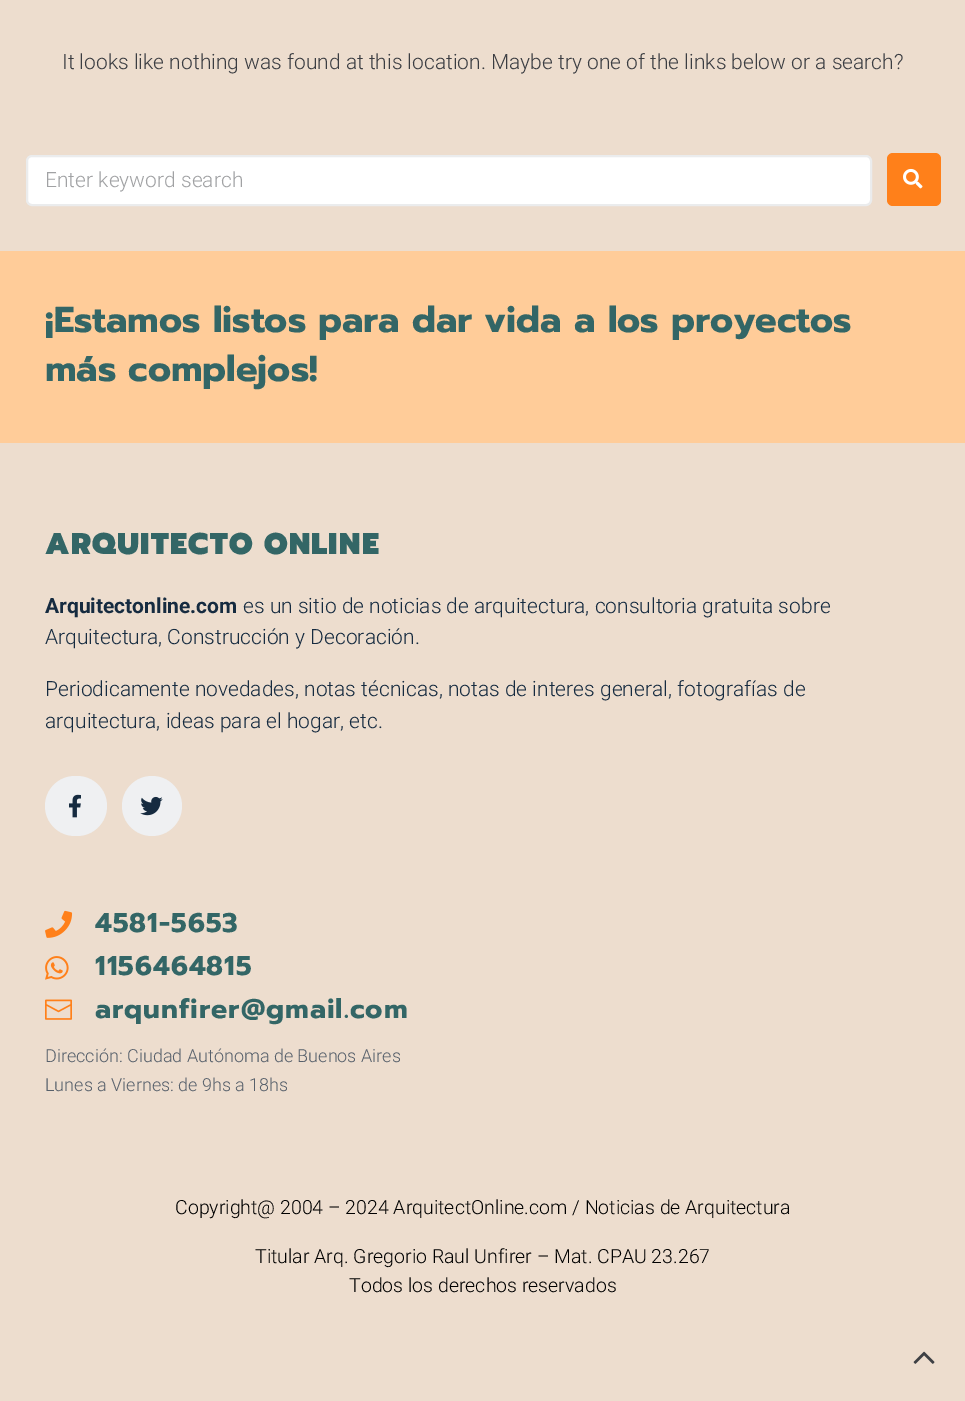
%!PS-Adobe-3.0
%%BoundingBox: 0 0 965 1401
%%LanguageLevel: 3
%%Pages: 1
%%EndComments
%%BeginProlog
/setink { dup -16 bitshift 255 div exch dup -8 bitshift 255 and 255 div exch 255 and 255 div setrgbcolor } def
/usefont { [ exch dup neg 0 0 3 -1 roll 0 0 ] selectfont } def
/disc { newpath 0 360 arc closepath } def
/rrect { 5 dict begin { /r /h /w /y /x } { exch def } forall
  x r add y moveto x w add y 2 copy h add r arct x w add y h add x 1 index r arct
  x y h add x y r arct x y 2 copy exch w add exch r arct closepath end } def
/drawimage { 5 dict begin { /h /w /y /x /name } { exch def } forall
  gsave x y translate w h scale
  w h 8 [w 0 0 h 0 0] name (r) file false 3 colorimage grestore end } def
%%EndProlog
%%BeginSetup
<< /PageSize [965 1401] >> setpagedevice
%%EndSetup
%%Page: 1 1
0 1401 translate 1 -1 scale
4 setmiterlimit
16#EDDDCE setink
0 0 965 1401 rectfill
/Roboto-Light 21 usefont
16#3B3D42 setink
62 69 moveto (It looks like nothing was found at this location. Maybe try one of the links below or a search?) show
16#FFFFFF setink
27 156 844 49 5 rrect gsave fill grestore
16#EBECED setink
2 setlinewidth
stroke
16#A1A2A4 setink
45 187 moveto (Enter keyword search) show
16#FF801A setink
887 153 54 53 6 rrect fill
(img1.raw) 903 168 20 21 drawimage
16#FFCC99 setink
0 251 965 192 rectfill
/Prompt-Bold 36 usefont
16#336666 setink
45 332 moveto (¡Estamos listos para dar vida a los proyectos) show
45 381 moveto (más complejos!) show
/Prompt-Black 30 usefont
45 554 moveto 1.25 0 (ARQUITECTO ONLINE) ashow
/Roboto-Bold 21 usefont
16#162B40 setink
45 613 moveto (Arquitectonline.com) show
/Roboto-Light 21 usefont
[
    [(es un sitio de noticias de arquitectura, consultoria gratuita sobre) 243 613]
    [(Arquitectura, Construcción y Decoración.) 45 644]
    [(Periodicamente novedades, notas técnicas, notas de interes general, fotografías de) 45 696]
    [(arquitectura, ideas para el hogar, etc.) 45 728]
] { aload pop moveto show } forall
16#EFF0F2 setink
45 776 62 60 30 rrect fill
(img2.raw) 69 794 12 24 drawimage
152 806 30 disc fill
(img3.raw) 140 796 23 20 drawimage
(img4.raw) 45 910 28 28 drawimage
/Prompt-Bold 27 usefont
16#336666 setink
95 932 moveto 1.1 0 (4581-5653) ashow
(img5.raw) 45 956 24 24 drawimage
95 975 moveto 1.1 0 (1156464815) ashow
(img6.raw) 45 999 27 21 drawimage
95 1018 moveto 1.1 0 (arqunfirer@gmail.com) ashow
/Roboto-Light 18 usefont
16#57606B setink
45 1062 moveto (Dirección: Ciudad Autónoma de Buenos Aires) show
45 1091 moveto (Lunes a Viernes: de 9hs a 18hs) show
/Roboto-Light 19.5 usefont
16#000000 setink
[
    [(Copyright@ 2004 – 2024 ArquitectOnline.com / Noticias de Arquitectura) 175 1214]
    [(Titular Arq. Gregorio Raul Unfirer – Mat. CPAU 23.267) 255 1263]
    [(Todos los derechos reservados) 349 1292]
] { aload pop moveto show } forall
(img7.raw) 913 1351 22 13 drawimage
showpage
%%EOF
